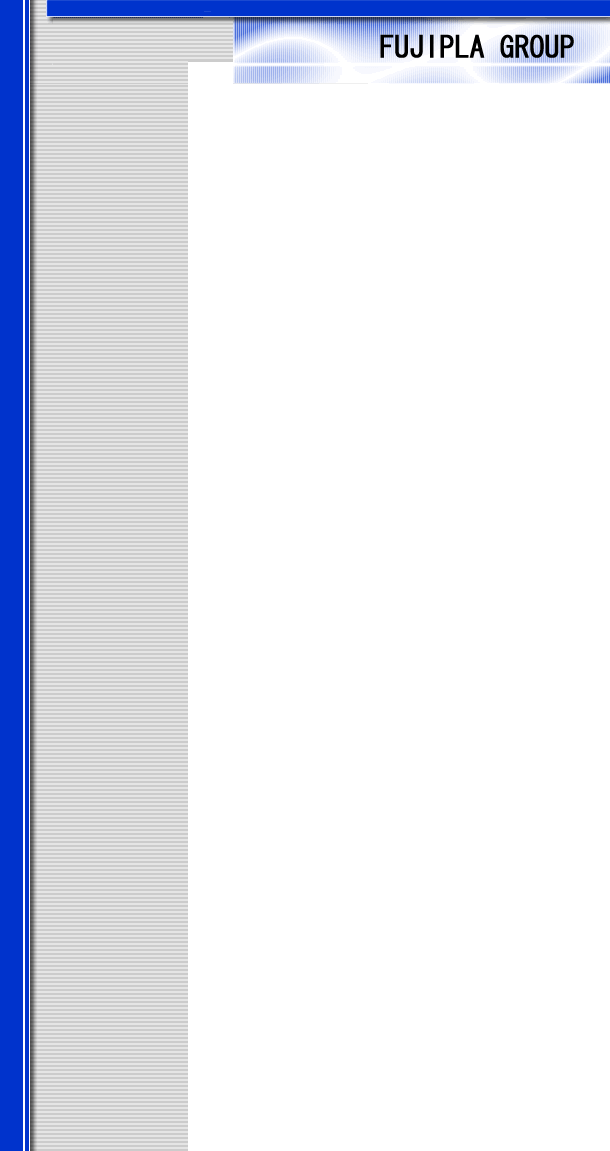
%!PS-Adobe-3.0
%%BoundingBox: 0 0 610 1151
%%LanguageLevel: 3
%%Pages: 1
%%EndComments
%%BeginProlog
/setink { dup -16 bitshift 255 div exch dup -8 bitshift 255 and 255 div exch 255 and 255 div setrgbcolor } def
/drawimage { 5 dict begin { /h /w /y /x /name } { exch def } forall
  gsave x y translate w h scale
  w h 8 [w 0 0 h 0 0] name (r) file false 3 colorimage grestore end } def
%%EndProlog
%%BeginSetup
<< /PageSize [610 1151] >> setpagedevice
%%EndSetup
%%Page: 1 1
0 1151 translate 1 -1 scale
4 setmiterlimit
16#FFFFFF setink
0 0 610 1151 rectfill
(img1.raw) 0 0 188 1151 drawimage
(img2.raw) 30 0 580 84 drawimage
showpage
%%EOF
